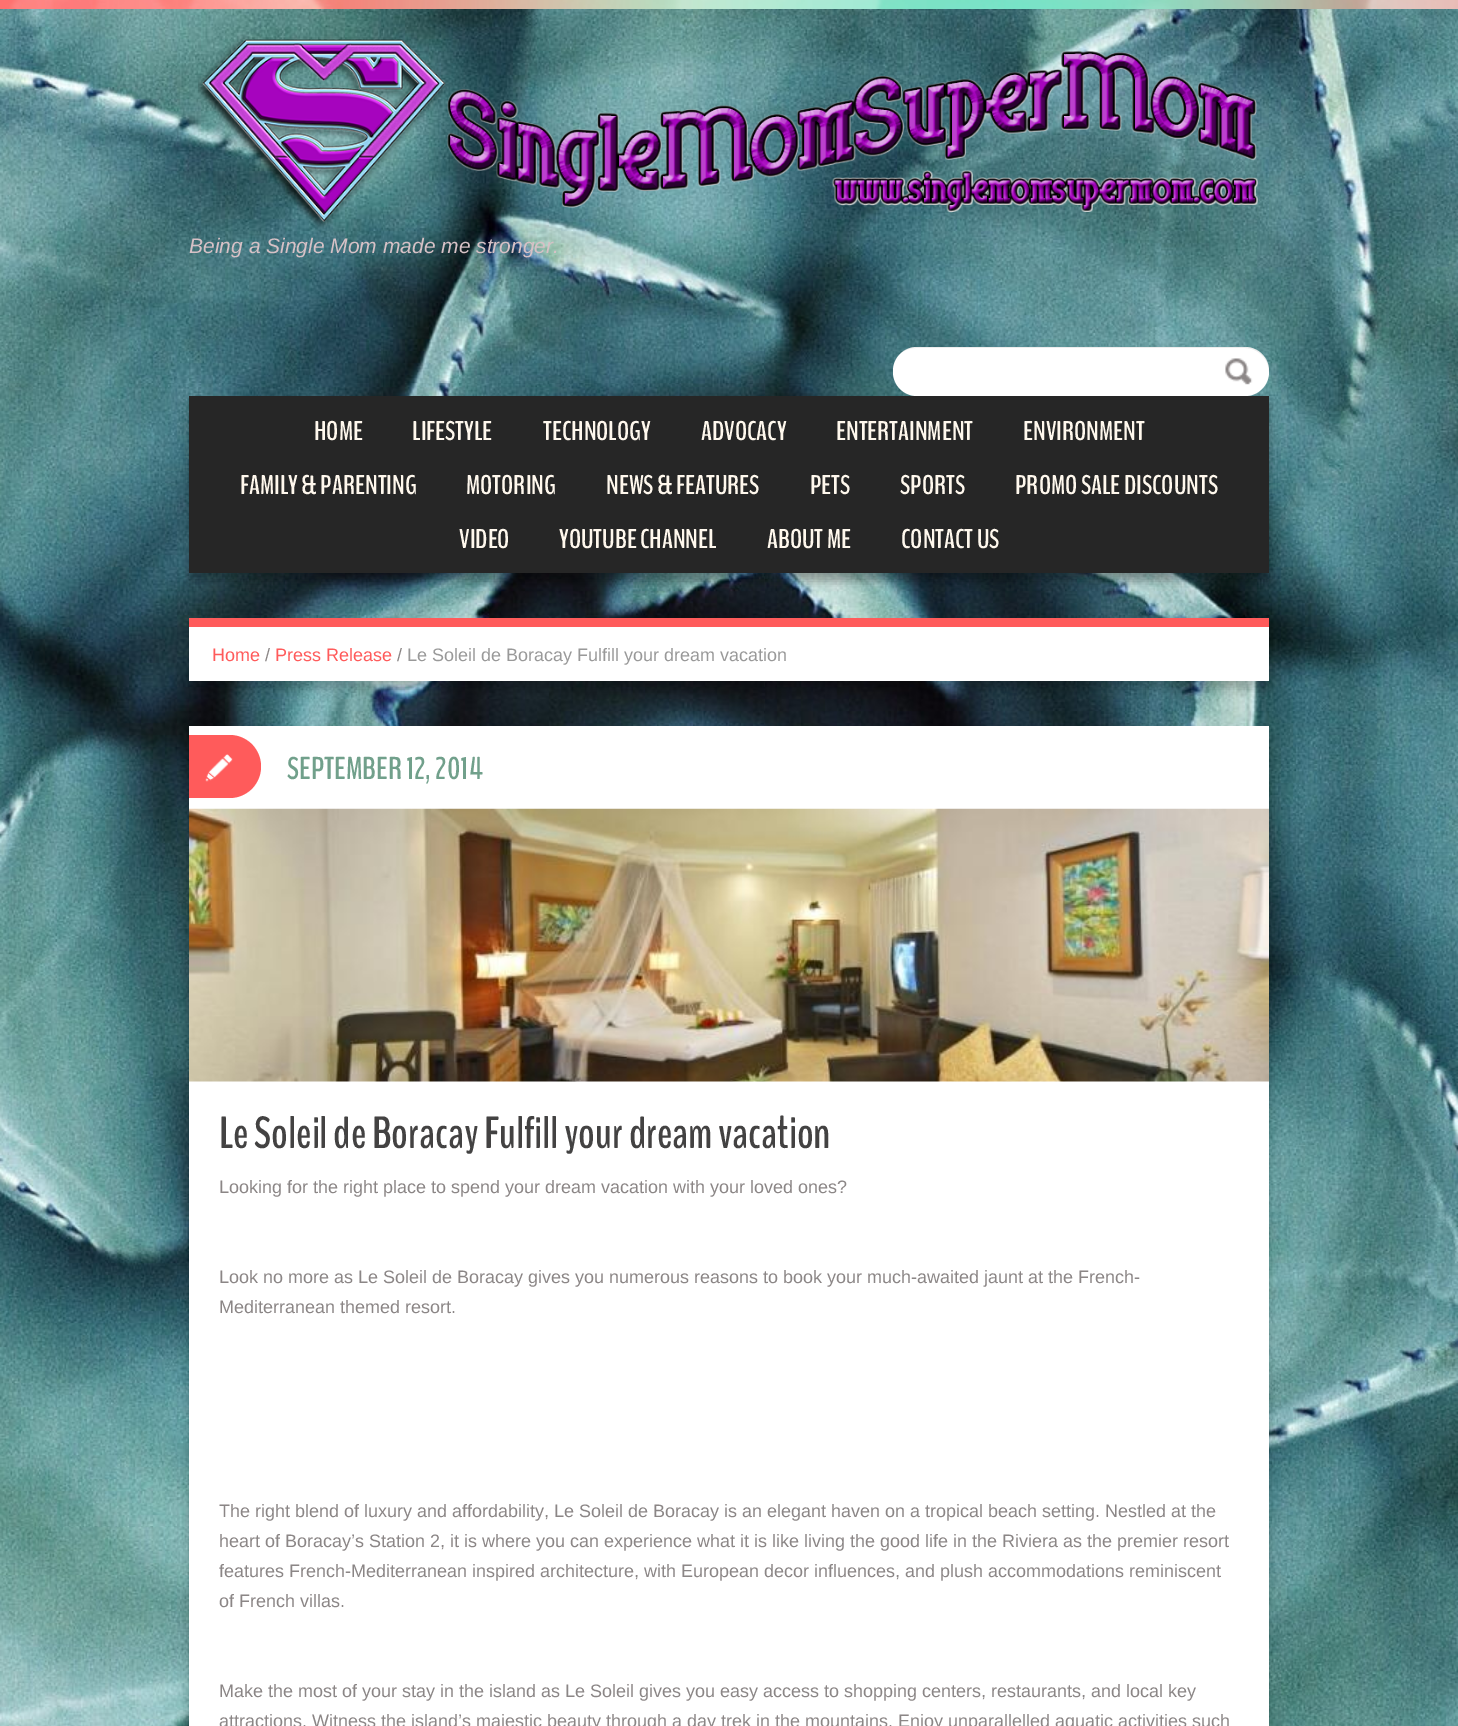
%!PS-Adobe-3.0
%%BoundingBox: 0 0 1458 1726
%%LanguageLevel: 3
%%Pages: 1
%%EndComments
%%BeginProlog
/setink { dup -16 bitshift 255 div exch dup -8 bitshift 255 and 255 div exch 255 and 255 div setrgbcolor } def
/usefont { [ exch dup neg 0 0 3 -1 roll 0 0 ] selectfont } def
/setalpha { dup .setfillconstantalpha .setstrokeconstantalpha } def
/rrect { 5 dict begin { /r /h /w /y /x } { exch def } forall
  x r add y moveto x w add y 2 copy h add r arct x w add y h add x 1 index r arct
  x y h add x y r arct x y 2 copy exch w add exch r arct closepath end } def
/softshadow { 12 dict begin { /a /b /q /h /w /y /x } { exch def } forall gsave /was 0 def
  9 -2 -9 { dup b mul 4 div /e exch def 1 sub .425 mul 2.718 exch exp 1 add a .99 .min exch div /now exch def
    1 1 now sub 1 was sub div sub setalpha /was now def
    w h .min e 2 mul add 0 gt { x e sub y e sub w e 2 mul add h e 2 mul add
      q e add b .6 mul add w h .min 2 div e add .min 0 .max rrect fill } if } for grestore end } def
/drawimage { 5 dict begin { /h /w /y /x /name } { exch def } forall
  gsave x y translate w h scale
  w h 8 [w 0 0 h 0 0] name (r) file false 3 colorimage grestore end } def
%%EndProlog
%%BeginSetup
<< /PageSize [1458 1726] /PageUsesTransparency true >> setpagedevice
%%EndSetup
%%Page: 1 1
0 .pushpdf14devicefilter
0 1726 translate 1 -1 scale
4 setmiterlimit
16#FFFFFF setink
0 0 1458 1726 rectfill
(img1.raw) 0 9 1458 1717 drawimage
(img2.raw) 0 0 1458 9 drawimage
(img3.raw) 198 37 1060 192 drawimage
/LiberationSans-Italic 21 usefont
16#D7C1C6 setink
189 253 moveto (Being a Single Mom made me stronger.) show
16#000000 setink
189 404 1080 177 0 5 0.33 softshadow
16#FFFFFF setink
893 347 376 49 24 rrect fill
0.07 setalpha
16#000000 setink
916 348 moveto 1245 348 lineto 1258 348 1269 359 1269 372 curveto 1269 371 lineto 1269 358 1258 347 1245 347 curveto 917 347 lineto 909 347 902 351 898 356 curveto 902 351 909 348 916 348 curveto closepath fill
1 setalpha
(img4.raw) 1225 358 28 27 drawimage
16#262626 setink
189 396 1080 177 rectfill
/BenchNine-Bold 27 usefont
16#FFF8ED setink
[
    [(HOME) 314 440]
    [(LIFESTYLE) 412 440]
    [(TECHNOLOGY) 543 440]
    [(ADVOCACY) 701 440]
    [(ENTERTAINMENT) 836 440]
    [(ENVIRONMENT) 1023 440]
    [(FAMILY & PARENTING) 240 494]
    [(MOTORING) 466 494]
    [(NEWS & FEATURES) 606 494]
    [(PETS) 810 494]
    [(SPORTS) 900 494]
    [(PROMO SALE DISCOUNTS) 1015 494]
    [(VIDEO) 459 548]
    [(YOUTUBE CHANNEL) 559 548]
    [(ABOUT ME) 767 548]
    [(CONTACT US) 901 548]
] { aload pop moveto show } forall
16#000000 setink
189 626 1080 63 0 5 0.22 softshadow
16#FFFFFF setink
189 627 1080 54 rectfill
16#FF5B5B setink
189 618 1080 9 rectfill
/LiberationSans-Regular 18 usefont
212 661 moveto (Home) show
16#8B8686 setink
265 661 moveto (/) show
16#FF5B5B setink
275 661 moveto (Press Release) show
16#8B8686 setink
397 661 moveto (/) show
16#999999 setink
407 661 moveto (Le Soleil de Boracay Fulfill your dream vacation) show
16#000000 setink
189 734 1080 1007 0 5 0.22 softshadow
16#FFFFFF setink
189 726 1080 1000 rectfill
16#FF5B5B setink
189 735 moveto 229.5 735 lineto 247 735 261 749 261 766.5 curveto 261 784 247 798 229.5 798 curveto 189 798 lineto closepath fill
(img5.raw) 205 754 28 28 drawimage
/BenchNine-Bold 31.5 usefont
16#71A08B setink
287 779 moveto (SEPTEMBER 12, 2014) show
(img6.raw) 189 808 1080 274 drawimage
/BenchNine-Bold 45 usefont
16#434242 setink
219 1148 moveto (Le Soleil de Boracay Fulfill your dream vacation) show
/LiberationSans-Regular 18 usefont
16#8B8686 setink
[
    [(Looking for the right place to spend your dream vacation with your loved ones?) 219 1193]
    [(Look no more as Le Soleil de Boracay gives you numerous reasons to book your much-awaited jaunt at the French-) 219 1283]
    [(Mediterranean themed resort.) 219 1313]
    [(The right blend of luxury and affordability, Le Soleil de Boracay is an elegant haven on a tropical beach setting. Nestled at the) 219 1517]
    [(heart of Boracay’s Station 2, it is where you can experience what it is like living the good life in the Riviera as the premier resort) 219 1547]
    [(features French-Mediterranean inspired architecture, with European decor influences, and plush accommodations reminiscent) 219 1577]
    [(of French villas.) 219 1607]
    [(Make the most of your stay in the island as Le Soleil gives you easy access to shopping centers, restaurants, and local key) 219 1697]
    [(attractions. Witness the island’s majestic beauty through a day trek in the mountains. Enjoy unparallelled aquatic activities such) 219 1727]
] { aload pop moveto show } forall
.poppdf14devicefilter showpage
%%EOF
